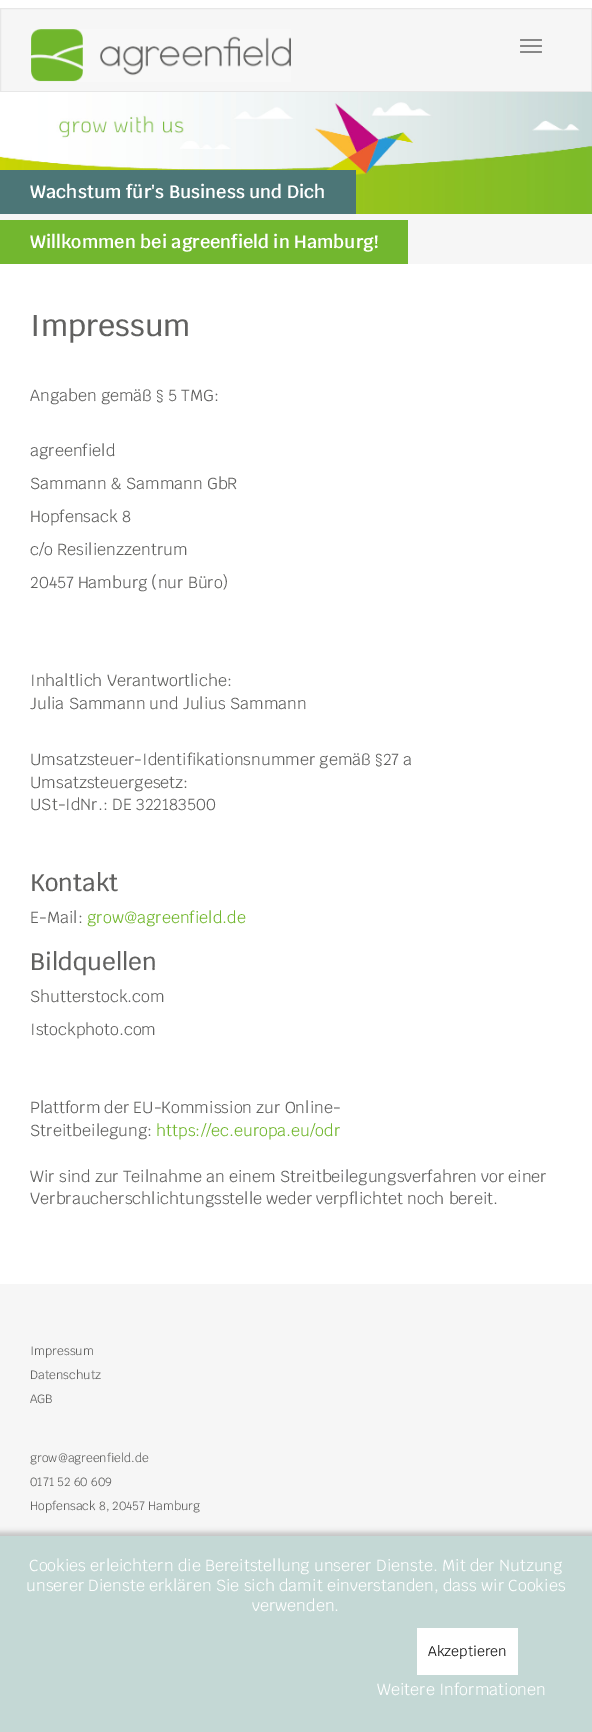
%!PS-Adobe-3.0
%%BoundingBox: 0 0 592 1732
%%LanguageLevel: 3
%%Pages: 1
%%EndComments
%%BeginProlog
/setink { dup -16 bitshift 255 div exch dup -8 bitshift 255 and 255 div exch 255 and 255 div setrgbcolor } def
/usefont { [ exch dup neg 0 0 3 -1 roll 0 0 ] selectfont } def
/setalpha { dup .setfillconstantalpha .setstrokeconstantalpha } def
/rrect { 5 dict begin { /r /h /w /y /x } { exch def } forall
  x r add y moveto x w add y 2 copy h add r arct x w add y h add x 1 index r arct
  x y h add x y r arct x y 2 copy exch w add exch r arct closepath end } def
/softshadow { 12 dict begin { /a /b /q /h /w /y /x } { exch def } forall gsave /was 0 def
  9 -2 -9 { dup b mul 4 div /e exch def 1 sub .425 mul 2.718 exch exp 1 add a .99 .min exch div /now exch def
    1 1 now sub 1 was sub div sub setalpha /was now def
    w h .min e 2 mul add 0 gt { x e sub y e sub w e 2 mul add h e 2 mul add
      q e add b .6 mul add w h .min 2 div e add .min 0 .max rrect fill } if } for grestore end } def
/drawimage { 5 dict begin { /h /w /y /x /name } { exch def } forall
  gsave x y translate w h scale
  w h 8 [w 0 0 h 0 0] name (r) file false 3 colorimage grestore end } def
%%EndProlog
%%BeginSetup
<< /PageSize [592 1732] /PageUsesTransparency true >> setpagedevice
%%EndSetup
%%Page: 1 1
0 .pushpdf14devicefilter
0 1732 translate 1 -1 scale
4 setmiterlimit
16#F6F6F6 setink
0 0 592 1732 rectfill
16#FFFFFF setink
0 264 592 1020 rectfill
0 0 592 8 rectfill
16#E7E7E7 setink
0.5 8.5 591 83 rectstroke
(img1.raw) 31 29 260 53 drawimage
16#888888 setink
520 39 22 2 1 rrect fill
520 45 22 2 1 rrect fill
520 51 22 2 1 rrect fill
(img2.raw) 0 92 592 122 drawimage
16#4C7677 setink
0 170 356 44 rectfill
/Krub-SemiBold 18 usefont
16#FFFFFF setink
30 198 moveto (Wachstum für's Business und Dich) show
16#72B72F setink
0 220 408 44 rectfill
16#FFFFFF setink
30 248 moveto (Willkommen bei agreenfield in Hamburg!) show
/Krub-Medium 30 usefont
16#616160 setink
30 336 moveto (Impressum) show
/Krub-Regular 16 usefont
[
    [(Angaben gemäß § 5 TMG:) 30 401]
    [(agreenfield) 30 456]
    [(Sammann & Sammann GbR) 30 489]
    [(Hopfensack 8) 30 522]
    [(c/o Resilienzzentrum) 30 555]
    [(20457 Hamburg \(nur Büro\)) 30 588]
    [(Inhaltlich Verantwortliche:) 30 686]
    [(Julia Sammann und Julius Sammann) 30 709]
    [(Umsatzsteuer-Identifikationsnummer gemäß §27 a) 30 765]
    [(Umsatzsteuergesetz:) 30 788]
    [(USt-IdNr.: DE 322183500) 30 810]
] { aload pop moveto show } forall
/Krub-Medium 24 usefont
30 891 moveto (Kontakt) show
/Krub-Regular 16 usefont
30 923 moveto (E-Mail:) show
16#72B72F setink
87 923 moveto (grow@agreenfield.de) show
/Krub-Medium 24 usefont
16#616160 setink
30 970 moveto (Bildquellen) show
/Krub-Regular 16 usefont
[
    [(Shutterstock.com) 30 1002]
    [(Istockphoto.com) 30 1035]
    [(Plattform der EU-Kommission zur Online-) 30 1113]
    [(Streitbeilegung:) 30 1136]
] { aload pop moveto show } forall
16#72B72F setink
156 1136 moveto (https://ec.europa.eu/odr) show
16#616160 setink
30 1182 moveto (Wir sind zur Teilnahme an einem Streitbeilegungsverfahren vor einer) show
30 1204 moveto (Verbraucherschlichtungsstelle weder verpflichtet noch bereit.) show
/Krub-Regular 12 usefont
[
    [(Impressum) 30 1355]
    [(Datenschutz) 30 1379]
    [(AGB) 30 1403]
    [(grow@agreenfield.de) 30 1462]
    [(0171 52 60 609) 30 1486]
    [(Hopfensack 8, 20457 Hamburg) 30 1510]
] { aload pop moveto show } forall
16#000000 setink
-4 1532 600 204 0 2.5 0.21 softshadow
16#C4D8D5 setink
0 1536 592 196 rectfill
/Krub-Regular 16 usefont
16#FFFFFF setink
[
    [(Cookies erleichtern die Bereitstellung unserer Dienste. Mit der Nutzung) 29 1571]
    [(unserer Dienste erklären Sie sich damit einverstanden, dass wir Cookies) 26 1591]
    [(verwenden.) 252 1611]
] { aload pop moveto show } forall
417 1628 101 47 rectfill
/Krub-Regular 14 usefont
16#111111 setink
428 1656 moveto (Akzeptieren) show
/Krub-Regular 16 usefont
16#FFFFFF setink
377 1695 moveto (Weitere Informationen) show
.poppdf14devicefilter showpage
%%EOF
